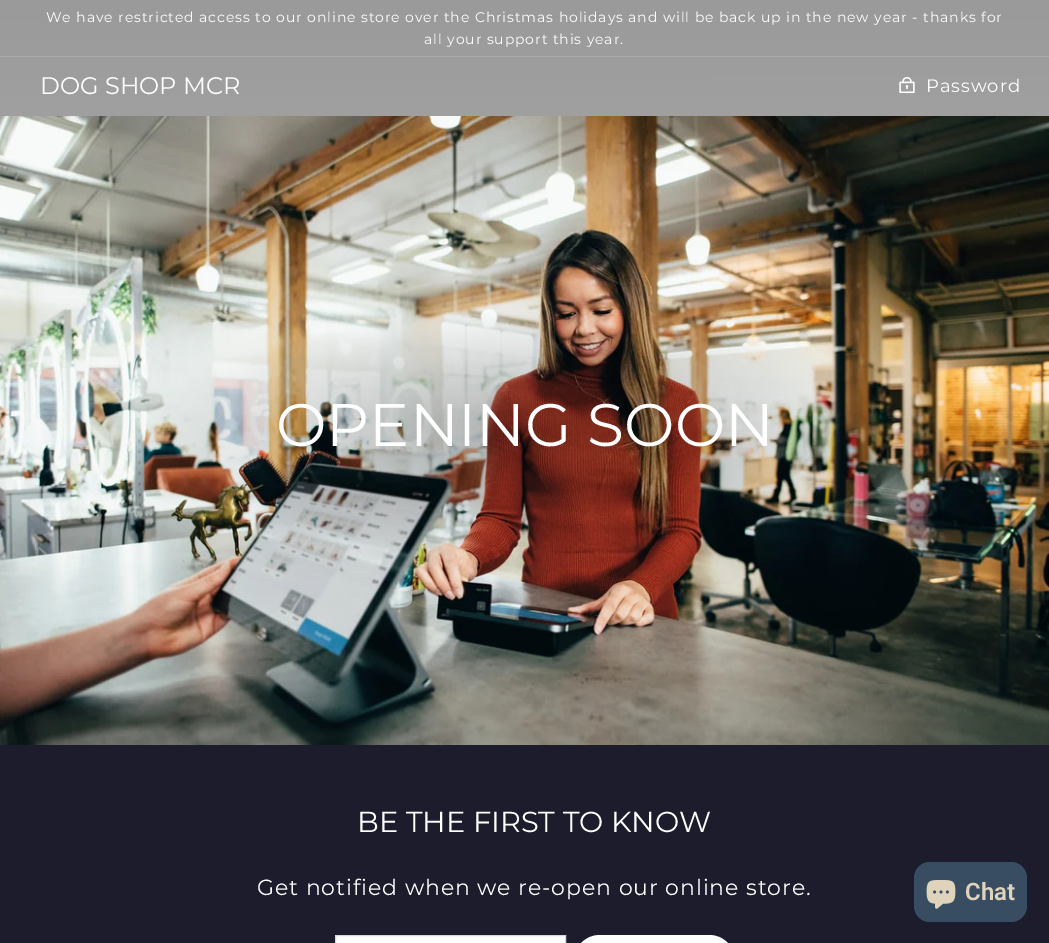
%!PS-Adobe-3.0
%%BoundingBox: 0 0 1049 943
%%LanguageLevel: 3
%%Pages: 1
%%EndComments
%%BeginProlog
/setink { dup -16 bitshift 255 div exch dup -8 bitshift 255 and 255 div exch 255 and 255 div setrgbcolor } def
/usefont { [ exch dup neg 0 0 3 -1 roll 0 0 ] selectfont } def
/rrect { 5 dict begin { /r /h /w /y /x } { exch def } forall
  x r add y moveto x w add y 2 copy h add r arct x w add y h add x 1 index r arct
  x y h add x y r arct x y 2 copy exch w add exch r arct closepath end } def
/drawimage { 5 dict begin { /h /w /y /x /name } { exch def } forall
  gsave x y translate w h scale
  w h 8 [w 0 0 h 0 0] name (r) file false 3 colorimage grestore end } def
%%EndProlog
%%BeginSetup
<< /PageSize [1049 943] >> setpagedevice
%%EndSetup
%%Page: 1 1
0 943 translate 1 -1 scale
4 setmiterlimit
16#FFFFFF setink
0 0 1049 943 rectfill
gsave 0 0 moveto 1049 0 lineto 1049 116 lineto 0 116 lineto closepath clip newpath
<< /ShadingType 2 /ColorSpace /DeviceRGB /Coords [524 0 525 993] /Extend [true true] /Function << /FunctionType 3 /Domain [0 1] /Functions [<< /FunctionType 2 /Domain [0 1] /C0 [0.604 0.604 0.604] /C1 [0.702 0.702 0.702] /N 1 >> << /FunctionType 2 /Domain [0 1] /C0 [0.702 0.702 0.702] /C1 [1 1 1] /N 1 >>] /Bounds [0.5] /Encode [0 1 0 1] >> >> shfill grestore
/Montserrat-Regular 14 usefont
46 22 moveto 0.9 0 (We have restricted access to our online store over the Christmas holidays and will be back up in the new year - thanks for) ashow
424 44 moveto 0.9 0 (all your support this year.) ashow
16#ACACAC setink
0 56 1049 1 rectfill
/Montserrat-Regular 24 usefont
16#FFFFFF setink
40 94 moveto (DOG SHOP MCR) show
(img1.raw) 899 76 16 18 drawimage
/Montserrat-Regular 18 usefont
926 92 moveto 0.9 0 (Password) ashow
(img2.raw) 0 116 1049 629 drawimage
/Montserrat-Regular 60 usefont
276 446 moveto (OPENING SOON) show
16#1D1C2D setink
0 745 1049 198 rectfill
/Montserrat-Regular 28.9 usefont
16#FFFFFF setink
357 832 moveto (BE THE FIRST TO KNOW) show
/Montserrat-Regular 22 usefont
257 895 moveto 0.9 0 (Get notified when we re-open our online store.) ashow
335.5 935.5 moveto 565.5 935.5 lineto 565.5 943.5 lineto 335.5 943.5 lineto closepath gsave fill grestore
16#D5D9DF setink
stroke
16#FFFFFF setink
574 935 161 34 26 rrect fill
16#384D62 setink
914 862 113 60 16 rrect fill
(img3.raw) 926 880 30 29 drawimage
/Roboto-SemiBold 24 usefont
16#E0D3BC setink
965 900 moveto (Chat) show
showpage
%%EOF
